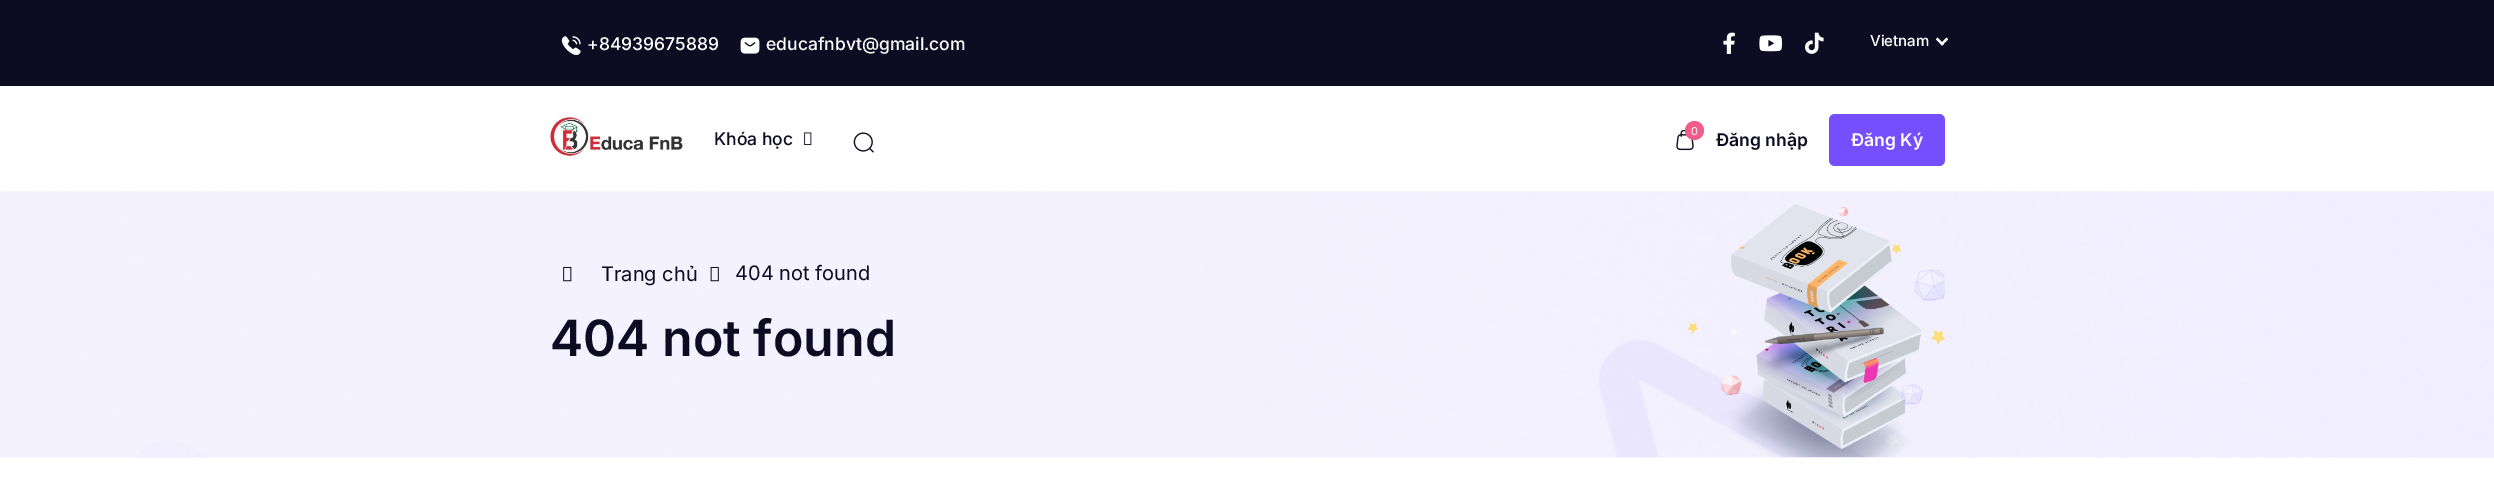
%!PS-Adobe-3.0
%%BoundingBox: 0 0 2494 498
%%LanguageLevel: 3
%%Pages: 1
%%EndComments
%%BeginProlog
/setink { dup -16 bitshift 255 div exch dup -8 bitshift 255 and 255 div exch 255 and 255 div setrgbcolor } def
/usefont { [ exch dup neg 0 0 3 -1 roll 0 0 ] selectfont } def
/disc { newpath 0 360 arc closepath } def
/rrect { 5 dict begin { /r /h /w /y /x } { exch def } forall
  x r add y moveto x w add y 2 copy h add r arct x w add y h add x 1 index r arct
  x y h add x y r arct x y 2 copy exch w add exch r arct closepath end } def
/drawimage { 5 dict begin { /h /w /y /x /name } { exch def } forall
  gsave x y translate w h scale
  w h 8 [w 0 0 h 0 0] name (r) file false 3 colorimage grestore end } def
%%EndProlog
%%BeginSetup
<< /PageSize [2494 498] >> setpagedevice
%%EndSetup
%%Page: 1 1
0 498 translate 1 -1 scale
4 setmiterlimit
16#FFFFFF setink
0 0 2494 498 rectfill
16#0D0C23 setink
0 0 2494 86 rectfill
(img1.raw) 561 36 20 19 drawimage
/Inter-Medium 17.5 usefont
16#FFFFFF setink
587 50 moveto (+84939675889) show
(img2.raw) 740 37 20 17 drawimage
766 50 moveto (educafnbvt@gmail.com) show
(img3.raw) 1723 32 12 22 drawimage
(img4.raw) 1759 35 24 17 drawimage
(img5.raw) 1805 32 19 22 drawimage
/Inter-Medium 15 usefont
1870 46 moveto (Vietnam) show
1946.5 37.5 moveto 1948 39.5 lineto 1942 45.5 lineto 1940.5 44 lineto closepath fill
1937.5 37.5 moveto 1944 44 lineto 1942 45.5 lineto 1936 39.5 lineto closepath fill
(img6.raw) 550 116 133 41 drawimage
/Inter-Medium 17.5 usefont
16#0D0C23 setink
714 145 moveto (Khóa học) show
(img7.raw) 804 132 8 13 drawimage
(img8.raw) 853 132 21 21 drawimage
(img9.raw) 1676 129 18 22 drawimage
16#F25C88 setink
1694.5 130.5 9.5 disc fill
/Inter-Regular 11 usefont
16#FFFFFF setink
1691 135 moveto (0) show
/Inter-SemiBold 17.5 usefont
16#0D0C23 setink
1716 146 moveto (Đăng nhập) show
16#754FFE setink
1829 114 116 52 6 rrect fill
16#FFFFFF setink
1851 146 moveto (Đăng Ký) show
(img10.raw) 0 191 2494 267 drawimage
(img11.raw) 563 266 9 16 drawimage
/Inter-Regular 20 usefont
16#0D0C23 setink
601 281 moveto (Trang chủ) show
(img12.raw) 710 266 9 16 drawimage
735 280 moveto (404 not found) show
/Inter-SemiBold 50 usefont
550 356 moveto (404 not found) show
(img13.raw) 1687 204 258 254 drawimage
showpage
%%EOF
